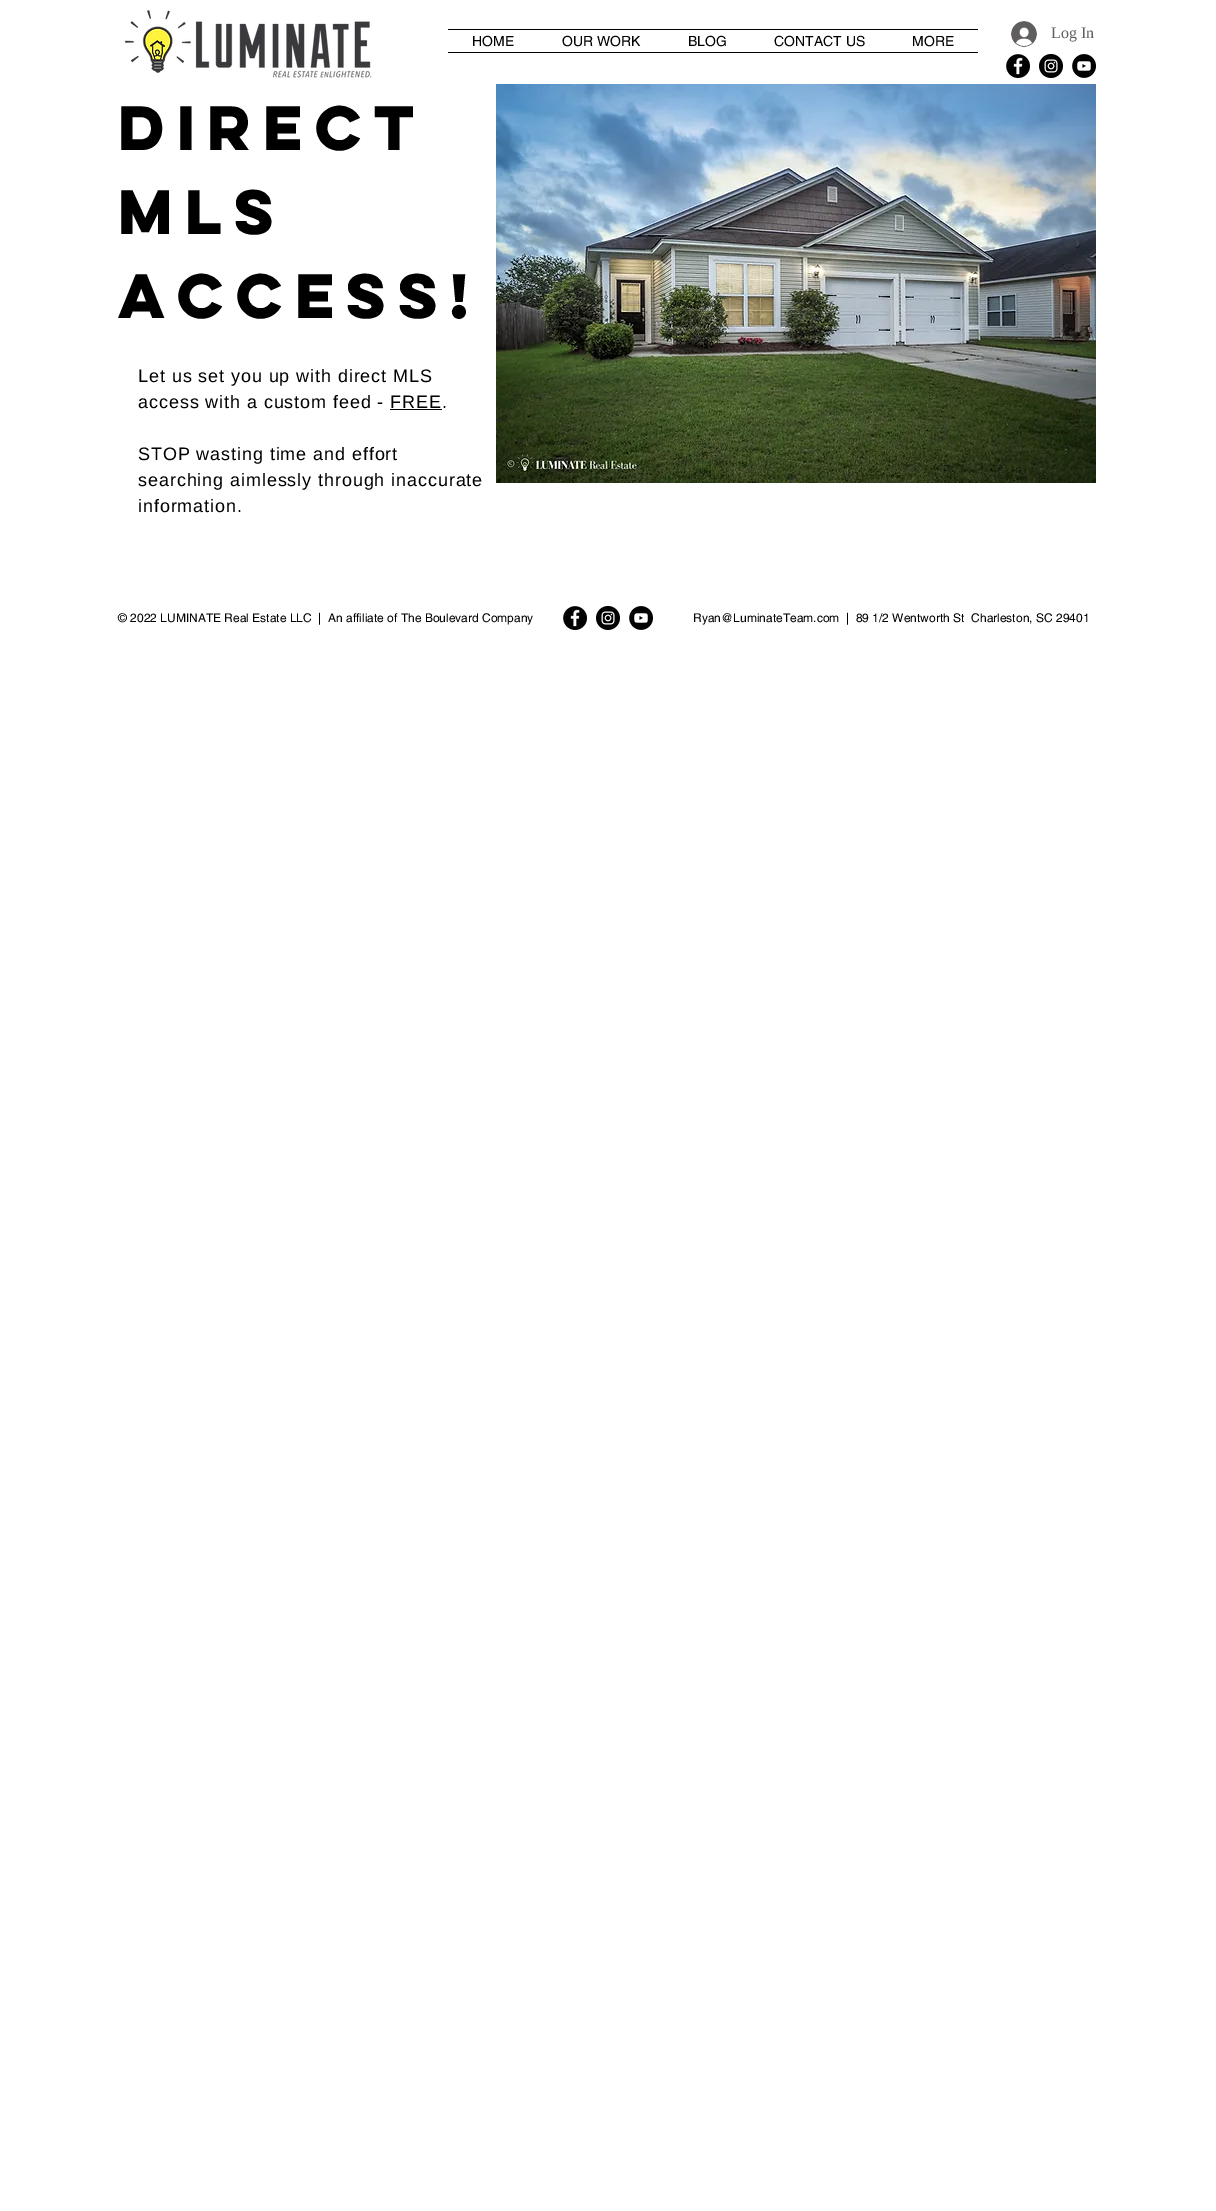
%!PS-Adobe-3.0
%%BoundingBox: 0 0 1216 2211
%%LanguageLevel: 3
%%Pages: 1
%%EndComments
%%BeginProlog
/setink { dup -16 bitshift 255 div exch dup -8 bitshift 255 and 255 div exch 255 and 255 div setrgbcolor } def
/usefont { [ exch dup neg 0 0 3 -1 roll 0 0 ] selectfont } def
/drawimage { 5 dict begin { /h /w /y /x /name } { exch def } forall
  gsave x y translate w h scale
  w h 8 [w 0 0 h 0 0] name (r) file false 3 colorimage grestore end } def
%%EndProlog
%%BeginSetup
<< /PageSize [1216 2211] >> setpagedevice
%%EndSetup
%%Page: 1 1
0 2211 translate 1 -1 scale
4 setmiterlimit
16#FFFFFF setink
0 0 1216 2211 rectfill
(img1.raw) 124 10 248 68 drawimage
16#000000 setink
448 29 530 1 rectfill
448 52 530 1 rectfill
/helvetica-Regular 14 usefont
[
    [(HOME) 472 46]
    [(OUR WORK) 562 46]
    [(BLOG) 688 46]
    [(CONTACT US) 774 46]
    [(MORE) 912 46]
] { aload pop moveto show } forall
(img2.raw) 1011 21 26 26 drawimage
/LiberationSerif-Regular 16 usefont
16#605E5E setink
1051 38 moveto (Log In) show
(img3.raw) 1006 54 24 24 drawimage
(img4.raw) 1039 54 24 24 drawimage
(img5.raw) 1072 54 24 24 drawimage
/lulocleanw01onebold-Bold 56 usefont
16#000000 setink
[
    [(DIRECT) 118 150]
    [(MLS) 118 234]
    [(ACCESS!) 118 318]
] { aload pop moveto show } forall
(img6.raw) 496 84 600 399 drawimage
/LiberationSans-Regular 18 usefont
138 382 moveto 0.9 0 (Let us set you up with direct MLS) ashow
138 408 moveto 0.9 0 (access with a custom feed - FREE.) ashow
390 409 52 1 rectfill
138 460 moveto 0.9 0 (STOP wasting time and effort) ashow
138 486 moveto 0.9 0 (searching aimlessly through inaccurate) ashow
138 512 moveto 0.9 0 (information.) ashow
/helvetica-Regular 12 usefont
118 622 moveto (© 2022 LUMINATE Real Estate LLC  |  An affiliate of The Boulevard Company) show
(img3.raw) 563 606 24 24 drawimage
(img4.raw) 596 606 24 24 drawimage
(img5.raw) 629 606 24 24 drawimage
693 622 moveto (Ryan@LuminateTeam.com) show
846 622 moveto (|  89 1/2 Wentworth St  Charleston, SC 29401) show
showpage
%%EOF
